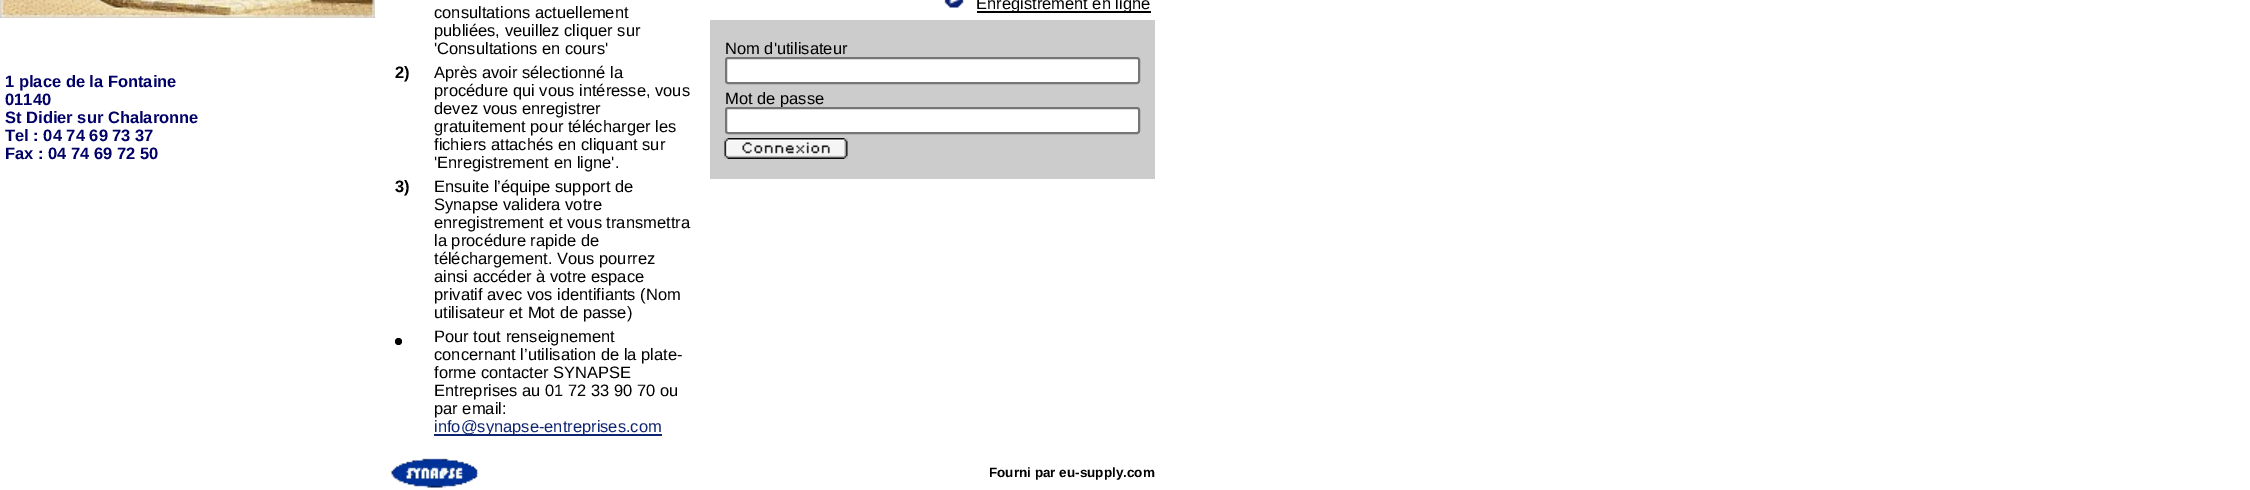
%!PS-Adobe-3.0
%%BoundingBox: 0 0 2250 490
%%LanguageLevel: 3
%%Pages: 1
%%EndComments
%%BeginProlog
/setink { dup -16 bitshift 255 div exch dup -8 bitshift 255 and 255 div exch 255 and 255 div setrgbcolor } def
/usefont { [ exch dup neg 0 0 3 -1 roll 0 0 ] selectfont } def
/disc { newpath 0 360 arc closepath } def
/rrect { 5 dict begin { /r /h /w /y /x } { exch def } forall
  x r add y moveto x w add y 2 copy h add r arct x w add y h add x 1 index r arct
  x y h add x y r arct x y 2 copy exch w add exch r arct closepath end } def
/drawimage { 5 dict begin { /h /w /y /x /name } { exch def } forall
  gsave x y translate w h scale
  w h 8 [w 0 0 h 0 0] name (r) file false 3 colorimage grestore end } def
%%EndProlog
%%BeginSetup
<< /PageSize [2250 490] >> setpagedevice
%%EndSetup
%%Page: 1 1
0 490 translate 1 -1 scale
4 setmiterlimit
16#FFFFFF setink
0 0 2250 490 rectfill
(img1.raw) 0 0 375 18 drawimage
/LiberationSans-Bold 16.5 usefont
16#000066 setink
[
    [(1 place de la Fontaine) 5 87]
    [(01140) 5 105]
    [(St Didier sur Chalaronne) 5 123]
    [(Tel : 04 74 69 73 37) 5 141]
    [(Fax : 04 74 69 72 50) 5 159]
] { aload pop moveto show } forall
/LiberationSans-Regular 16.5 usefont
16#000000 setink
[
    [(consultations actuellement) 434 18]
    [(publiées, veuillez cliquer sur) 434 36]
    [('Consultations en cours') 434 54]
] { aload pop moveto show } forall
/LiberationSans-Bold 16.5 usefont
395 78 moveto (2\)) show
/LiberationSans-Regular 16.5 usefont
[
    [(Après avoir sélectionné la) 434 78]
    [(procédure qui vous intéresse, vous) 434 96]
    [(devez vous enregistrer) 434 114]
    [(gratuitement pour télécharger les) 434 132]
    [(fichiers attachés en cliquant sur) 434 150]
    [('Enregistrement en ligne'.) 434 168]
] { aload pop moveto show } forall
/LiberationSans-Bold 16.5 usefont
395 192 moveto (3\)) show
/LiberationSans-Regular 16.5 usefont
[
    [(Ensuite l’équipe support de) 434 192]
    [(Synapse validera votre) 434 210]
    [(enregistrement et vous transmettra) 434 228]
    [(la procédure rapide de) 434 246]
    [(téléchargement. Vous pourrez) 434 264]
    [(ainsi accéder à votre espace) 434 282]
    [(privatif avec vos identifiants \(Nom) 434 300]
    [(utilisateur et Mot de passe\)) 434 318]
] { aload pop moveto show } forall
398.5 341.5 3.5 disc fill
[
    [(Pour tout renseignement) 434 342]
    [(concernant l’utilisation de la plate-) 434 360]
    [(forme contacter SYNAPSE) 434 378]
    [(Entreprises au 01 72 33 90 70 ou) 434 396]
    [(par email:) 434 414]
] { aload pop moveto show } forall
16#0E2571 setink
434 434 228 2 rectfill
434 432 moveto (info@synapse-entreprises.com) show
(img2.raw) 944 0 20 8 drawimage
16#000000 setink
977 11 174 2 rectfill
976 9 moveto (Enregistrement en ligne) show
16#CCCCCC setink
710 20 445 159 rectfill
16#000000 setink
725 54 moveto (Nom d'utilisateur) show
16#FFFFFF setink
726 58 413 25 2 rrect gsave fill grestore
16#767676 setink
2 setlinewidth
stroke
16#000000 setink
725 104 moveto (Mot de passe) show
16#FFFFFF setink
726 108 413 25 2 rrect gsave fill grestore
16#767676 setink
stroke
(img3.raw) 724 138 124 21 drawimage
(img4.raw) 391 458 88 30 drawimage
/LiberationSans-Bold 13.5 usefont
16#000000 setink
989 477 moveto (Fourni par eu-supply.com) show
showpage
%%EOF
